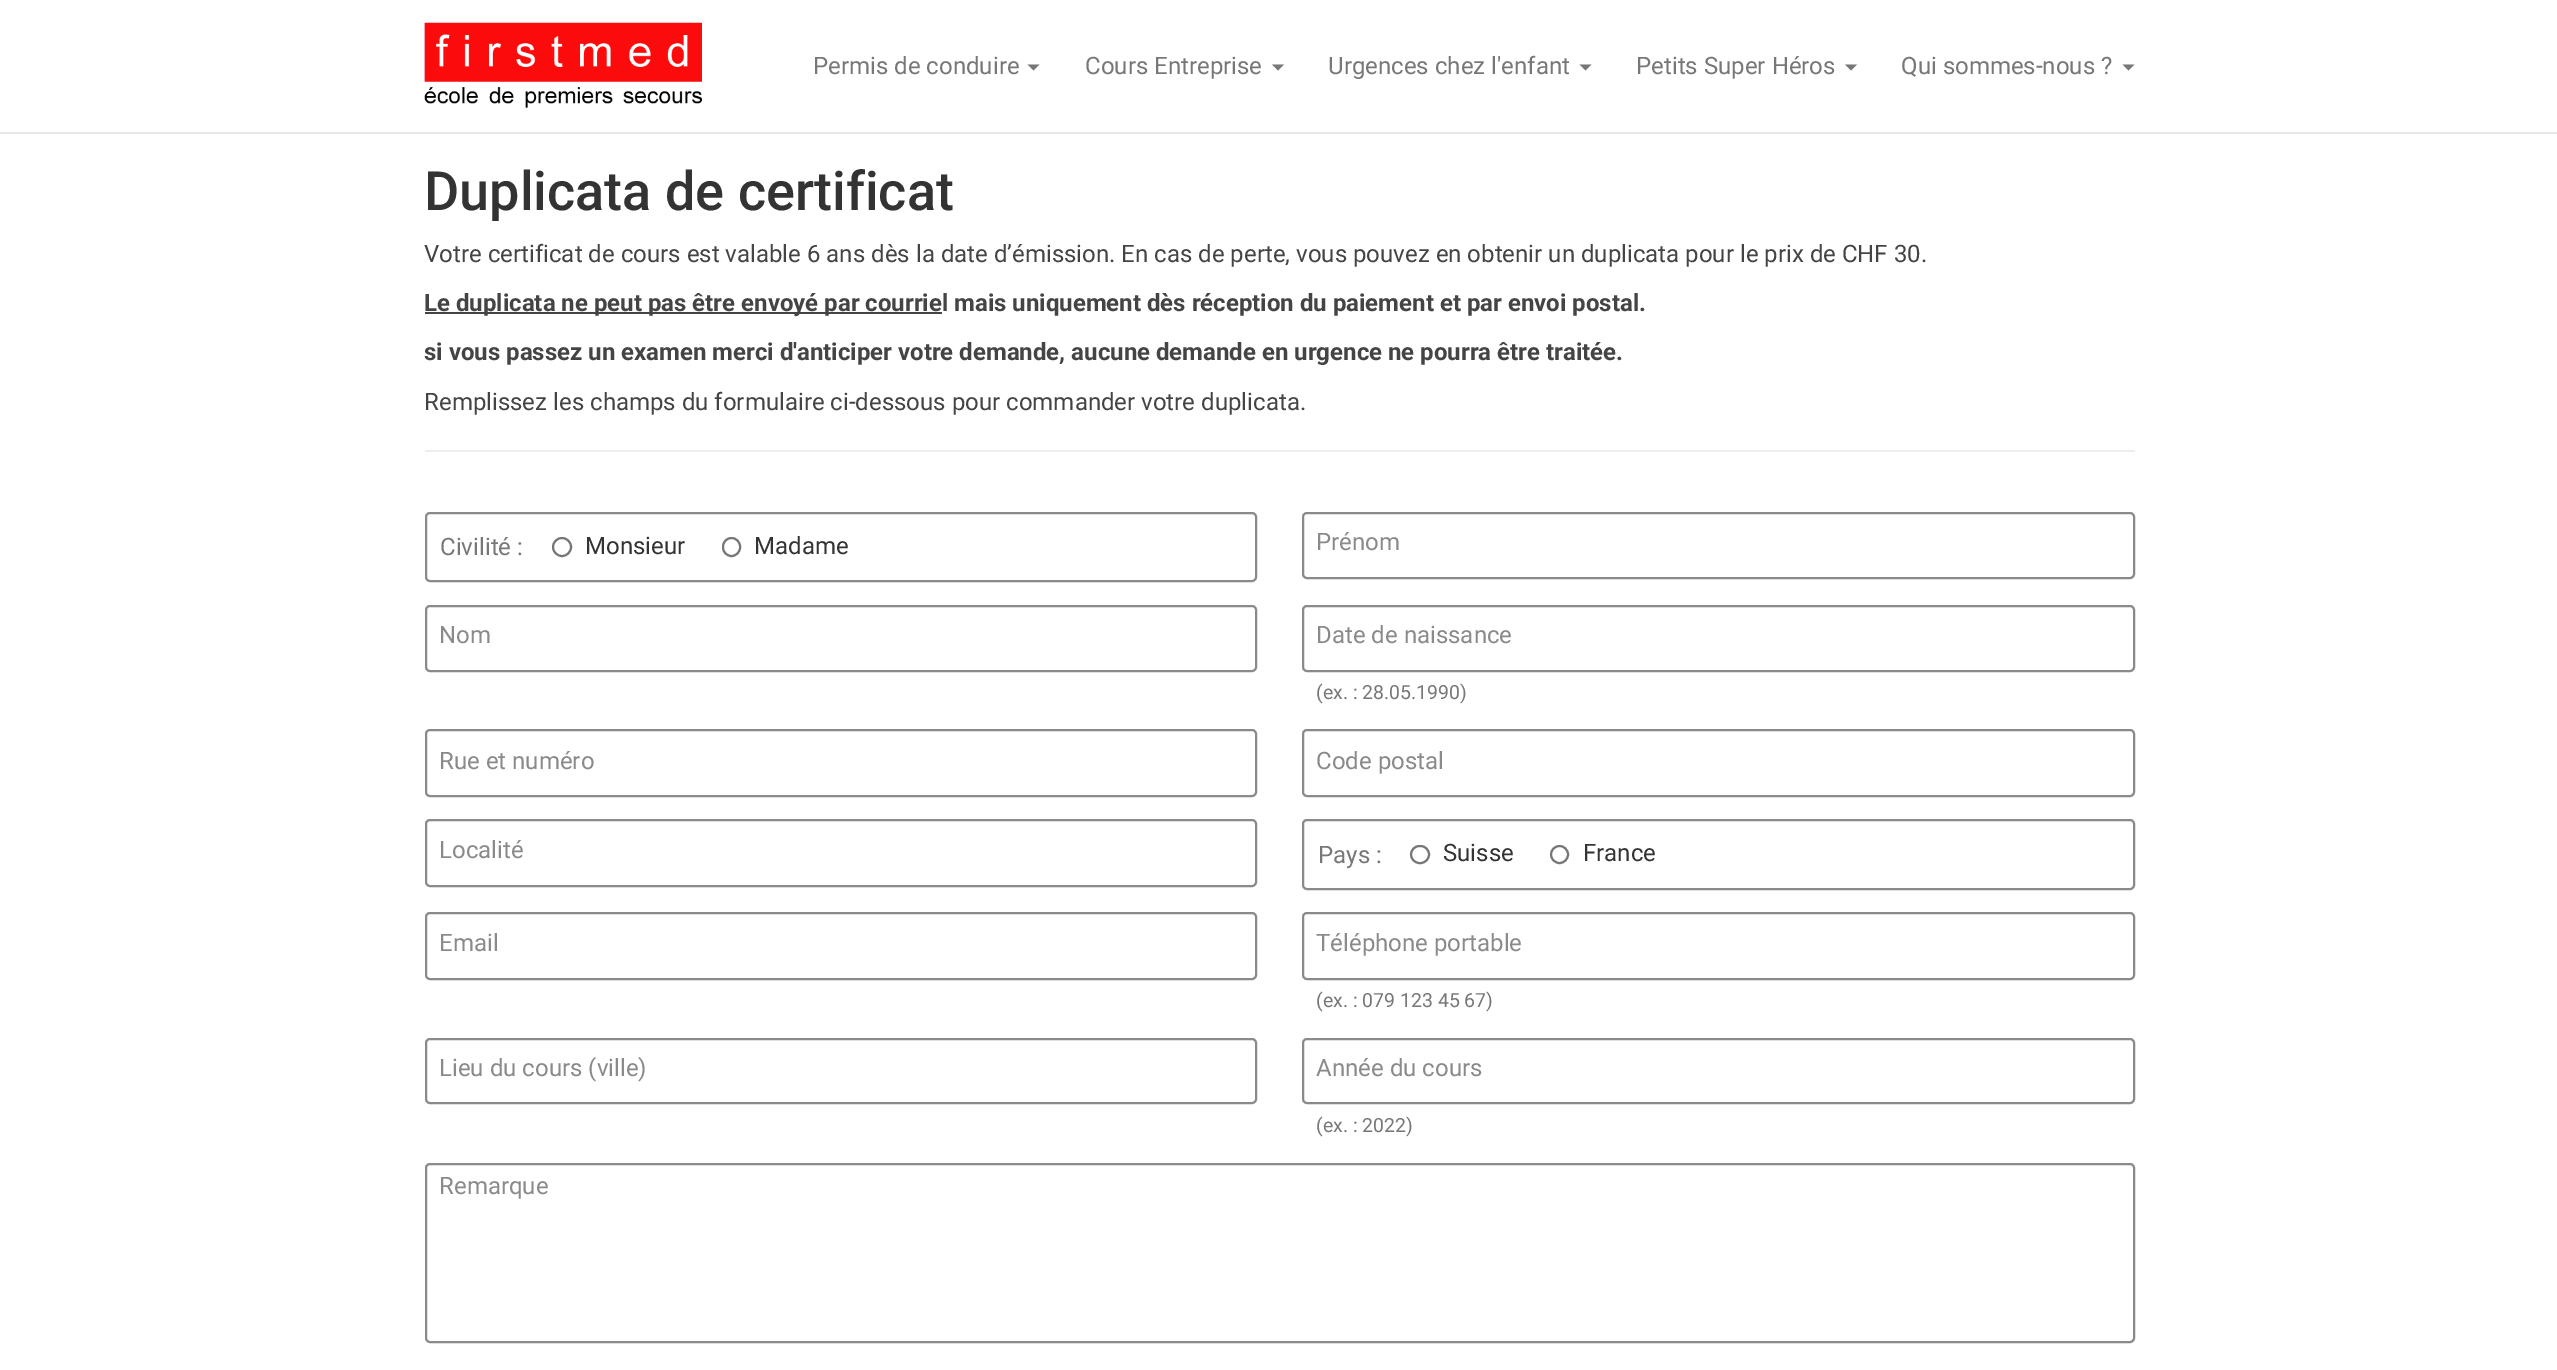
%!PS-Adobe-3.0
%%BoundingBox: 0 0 2557 1370
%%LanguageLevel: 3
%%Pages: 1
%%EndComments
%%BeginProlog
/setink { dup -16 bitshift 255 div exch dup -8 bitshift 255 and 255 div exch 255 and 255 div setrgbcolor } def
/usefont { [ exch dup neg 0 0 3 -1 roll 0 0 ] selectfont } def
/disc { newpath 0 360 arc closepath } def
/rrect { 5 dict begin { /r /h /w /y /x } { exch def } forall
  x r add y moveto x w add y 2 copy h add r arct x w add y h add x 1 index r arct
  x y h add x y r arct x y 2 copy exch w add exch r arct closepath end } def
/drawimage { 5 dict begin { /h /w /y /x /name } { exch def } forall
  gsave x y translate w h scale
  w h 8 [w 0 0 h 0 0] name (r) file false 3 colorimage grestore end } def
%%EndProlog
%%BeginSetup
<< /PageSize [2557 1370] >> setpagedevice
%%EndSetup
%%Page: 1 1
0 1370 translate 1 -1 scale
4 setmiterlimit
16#FFFFFF setink
0 0 2557 1370 rectfill
16#E7E7E7 setink
0 132 2557 2 rectfill
(img1.raw) 424 22 278 86 drawimage
/Roboto-Regular 24 usefont
16#777777 setink
813 74 moveto (Permis de conduire) show
1027.5 64.5 moveto 1039.5 64.5 lineto 1033.5 70.5 lineto closepath fill
1085 74 moveto (Cours Entreprise) show
1272 64.5 moveto 1284 64.5 lineto 1278 70.5 lineto closepath fill
1328 74 moveto (Urgences chez l'enfant) show
1579.5 64.5 moveto 1591.5 64.5 lineto 1585.5 70.5 lineto closepath fill
1636 74 moveto (Petits Super Héros) show
1845 64.5 moveto 1857 64.5 lineto 1851 70.5 lineto closepath fill
1901 74 moveto (Qui sommes-nous ?) show
2122.5 64.5 moveto 2134.5 64.5 lineto 2128.5 70.5 lineto closepath fill
/Roboto-Medium 54 usefont
16#333333 setink
424 210 moveto (Duplicata de certificat) show
/Roboto-Regular 24 usefont
16#444444 setink
424 262 moveto (Votre certificat de cours est valable 6 ans dès la date d’émission. En cas de perte, vous pouvez en obtenir un duplicata pour le prix de CHF 30.) show
425 312 517 2 rectfill
/Roboto-Bold 24 usefont
424 311 moveto (Le duplicata ne peut pas être envoyé par courriel mais uniquement dès réception du paiement et par envoi postal.) show
424 360 moveto (si vous passez un examen merci d'anticiper votre demande, aucune demande en urgence ne pourra être traitée.) show
/Roboto-Regular 24 usefont
424 410 moveto (Remplissez les champs du formulaire ci-dessous pour commander votre duplicata.) show
16#EEEEEE setink
425 450 1710 2 rectfill
16#8A8A8A setink
2 setlinewidth
426 513 830 68 4 rrect stroke
16#777777 setink
440 555 moveto (Civilité :) show
16#767676 setink
562 547 9 disc stroke
16#333333 setink
585 554 moveto (Monsieur) show
16#767676 setink
723 538 17 18 8.5 rrect stroke
16#333333 setink
754 554 moveto (Madame) show
16#8A8A8A setink
1303 513 831 65 4 rrect stroke
1316 550 moveto (Prénom) show
426 606 830 65 4 rrect stroke
439 643 moveto (Nom) show
1303 606 831 65 4 rrect stroke
1316 643 moveto (Date de naissance) show
/Roboto-Regular 19.5 usefont
16#777777 setink
1316 699 moveto (\(ex. : 28.05.1990\)) show
16#8A8A8A setink
426 730 830 66 4 rrect stroke
/Roboto-Regular 24 usefont
439 769 moveto (Rue et numéro) show
1303 730 831 66 4 rrect stroke
1316 769 moveto (Code postal) show
426 820 830 66 4 rrect stroke
439 858 moveto (Localité) show
1303 820 831 69 4 rrect stroke
16#777777 setink
1318 863 moveto (Pays :) show
16#767676 setink
1411 846 18 17 8.5 rrect stroke
16#333333 setink
1443 861 moveto (Suisse) show
16#767676 setink
1559.5 854.5 8.5 disc stroke
16#333333 setink
1583 861 moveto (France) show
16#8A8A8A setink
426 913 830 66 4 rrect stroke
439 951 moveto (Email) show
1303 913 831 66 4 rrect stroke
1316 951 moveto (Téléphone portable) show
/Roboto-Regular 19.5 usefont
16#777777 setink
1316 1007 moveto (\(ex. : 079 123 45 67\)) show
16#8A8A8A setink
426 1039 830 64 4 rrect stroke
/Roboto-Regular 24 usefont
439 1076 moveto (Lieu du cours \(ville\)) show
1303 1039 831 64 4 rrect stroke
1316 1076 moveto (Année du cours) show
/Roboto-Regular 19.5 usefont
16#777777 setink
1316 1132 moveto (\(ex. : 2022\)) show
16#8A8A8A setink
426 1164 1708 178 4 rrect stroke
/Roboto-Regular 24 usefont
439 1194 moveto (Remarque) show
showpage
%%EOF
